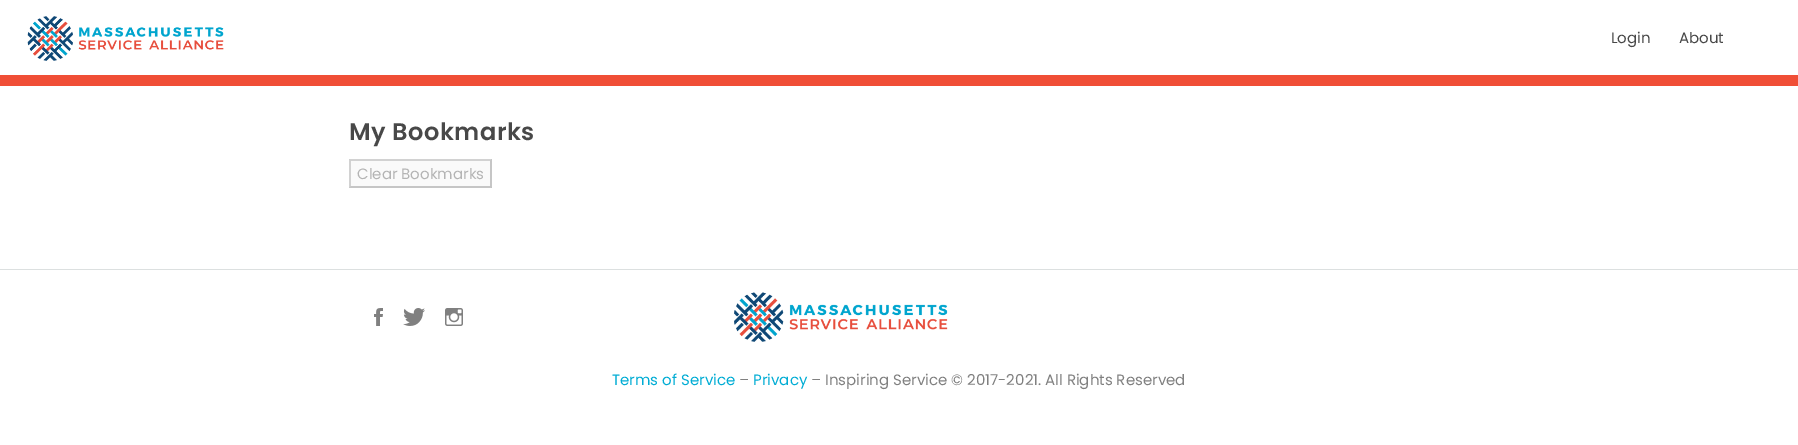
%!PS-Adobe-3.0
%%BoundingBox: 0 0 1798 445
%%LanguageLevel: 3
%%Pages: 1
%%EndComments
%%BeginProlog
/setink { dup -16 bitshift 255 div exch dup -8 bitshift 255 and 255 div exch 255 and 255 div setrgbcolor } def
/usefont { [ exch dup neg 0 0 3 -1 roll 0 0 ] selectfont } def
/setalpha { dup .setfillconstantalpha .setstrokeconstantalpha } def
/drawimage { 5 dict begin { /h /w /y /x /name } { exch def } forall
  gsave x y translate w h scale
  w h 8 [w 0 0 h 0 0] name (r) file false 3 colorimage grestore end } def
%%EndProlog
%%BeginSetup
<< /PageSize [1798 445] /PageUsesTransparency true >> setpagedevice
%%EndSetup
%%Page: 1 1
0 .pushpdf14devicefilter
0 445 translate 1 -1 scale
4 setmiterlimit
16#FFFFFF setink
0 0 1798 445 rectfill
16#F04E36 setink
0 75 1798 11 rectfill
(img1.raw) 27 16 197 45 drawimage
/Poppins-Regular 15 usefont
16#484848 setink
1611 43 moveto (Login) show
1679 43 moveto (About) show
/Poppins-SemiBold 24 usefont
349 140 moveto 0.5 0 (My Bookmarks) ashow
16#FAFAFA setink
349 159 143 29 rectfill
16#D2D2D2 setink
349 159 moveto 492 159 lineto 490 161 lineto 351 161 lineto closepath fill
0.3 setalpha
16#4F4F4F setink
492 159 moveto 492 188 lineto 490 186 lineto 490 161 lineto closepath fill
492 188 moveto 349 188 lineto 351 186 lineto 490 186 lineto closepath fill
16#767676 setink
349 188 moveto 349 159 lineto 351 161 lineto 351 186 lineto closepath fill
/Poppins-Regular 15 usefont
1 setalpha
16#B4B4B4 setink
357 179 moveto (Clear Bookmarks) show
16#DCE0E0 setink
0 269 1798 1 rectfill
(img2.raw) 374 308 9 18 drawimage
(img3.raw) 403 308 22 18 drawimage
(img4.raw) 445 308 18 18 drawimage
(img5.raw) 734 292 214 50 drawimage
16#00ACD4 setink
612 385 moveto (Terms of Service) show
16#808080 setink
739 385 moveto (–) show
16#00ACD4 setink
753 385 moveto (Privacy) show
16#808080 setink
811 385 moveto (– Inspiring Service © 2017-2021. All Rights Reserved) show
.poppdf14devicefilter showpage
%%EOF
